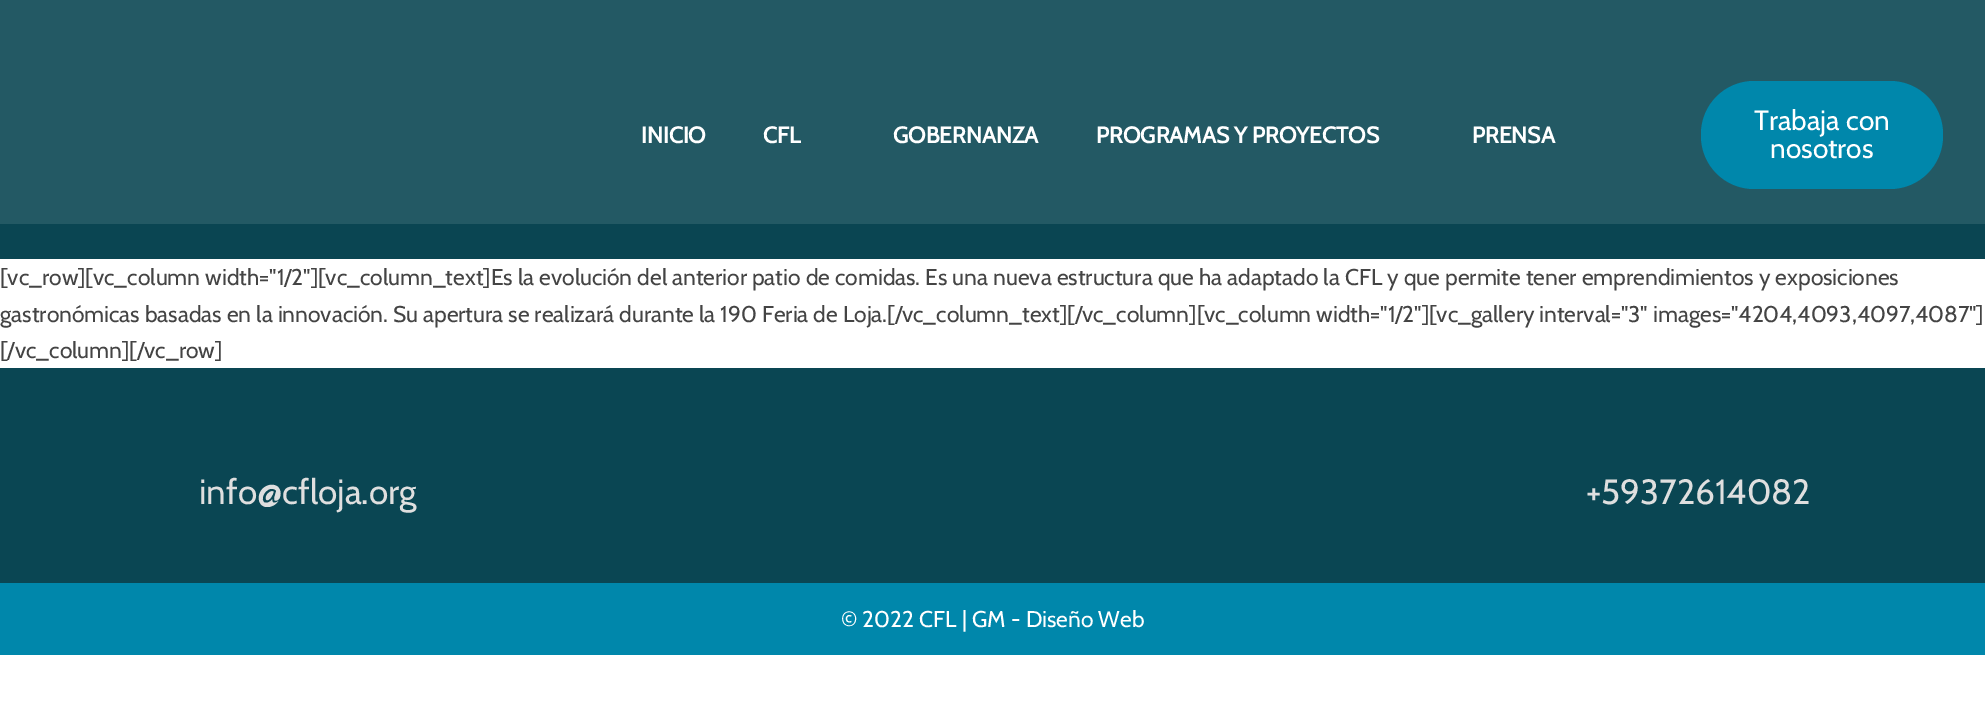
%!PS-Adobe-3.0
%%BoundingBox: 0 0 1985 724
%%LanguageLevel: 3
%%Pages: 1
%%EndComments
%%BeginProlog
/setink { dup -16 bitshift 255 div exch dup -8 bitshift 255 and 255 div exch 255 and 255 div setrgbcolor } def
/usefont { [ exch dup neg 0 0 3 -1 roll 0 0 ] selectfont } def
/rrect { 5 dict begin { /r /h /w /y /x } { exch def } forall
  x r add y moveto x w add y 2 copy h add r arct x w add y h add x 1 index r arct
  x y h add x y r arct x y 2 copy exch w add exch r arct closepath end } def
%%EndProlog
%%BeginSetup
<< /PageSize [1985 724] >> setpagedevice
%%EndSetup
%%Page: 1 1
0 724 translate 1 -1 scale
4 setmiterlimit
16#FFFFFF setink
0 0 1985 724 rectfill
16#235964 setink
0 0 1985 224 rectfill
/Cabin-Bold 22.75 usefont
16#FFFFFF setink
[
    [(INICIO) 641 143]
    [(CFL) 763 143]
    [(GOBERNANZA) 893 143]
    [(PROGRAMAS Y PROYECTOS) 1096 143]
    [(PRENSA) 1472 143]
] { aload pop moveto show } forall
16#0087AB setink
1701 81 242 108 53 rrect fill
/Cabin-Regular 28 usefont
16#FFFFFF setink
1754 130 moveto (Trabaja con) show
1770 158 moveto (nosotros) show
16#0A4552 setink
0 224 1985 35 rectfill
/Cabin-Regular 22.75 usefont
16#444444 setink
[
    [([vc_row][vc_column width="1/2"][vc_column_text]Es la evolución del anterior patio de comidas. Es una nueva estructura que ha adaptado la CFL y que permite tener emprendimientos y exposiciones) 0 285]
    [(gastronómicas basadas en la innovación. Su apertura se realizará durante la 190 Feria de Loja.[/vc_column_text][/vc_column][vc_column width="1/2"][vc_gallery interval="3" images="4204,4093,4097,4087"]) 0 322]
    [([/vc_column][/vc_row]) 0 358]
] { aload pop moveto show } forall
16#0A4653 setink
0 368 1985 215 rectfill
/Cabin-Regular 35 usefont
16#DFDFDF setink
199 504 moveto (info@cfloja.org) show
1586 504 moveto (+59372614082) show
16#0087AB setink
0 583 1985 72 rectfill
/Cabin-Regular 22.75 usefont
16#FFFFFF setink
841 627 moveto (© 2022 CFL | GM - Diseño Web) show
showpage
%%EOF
